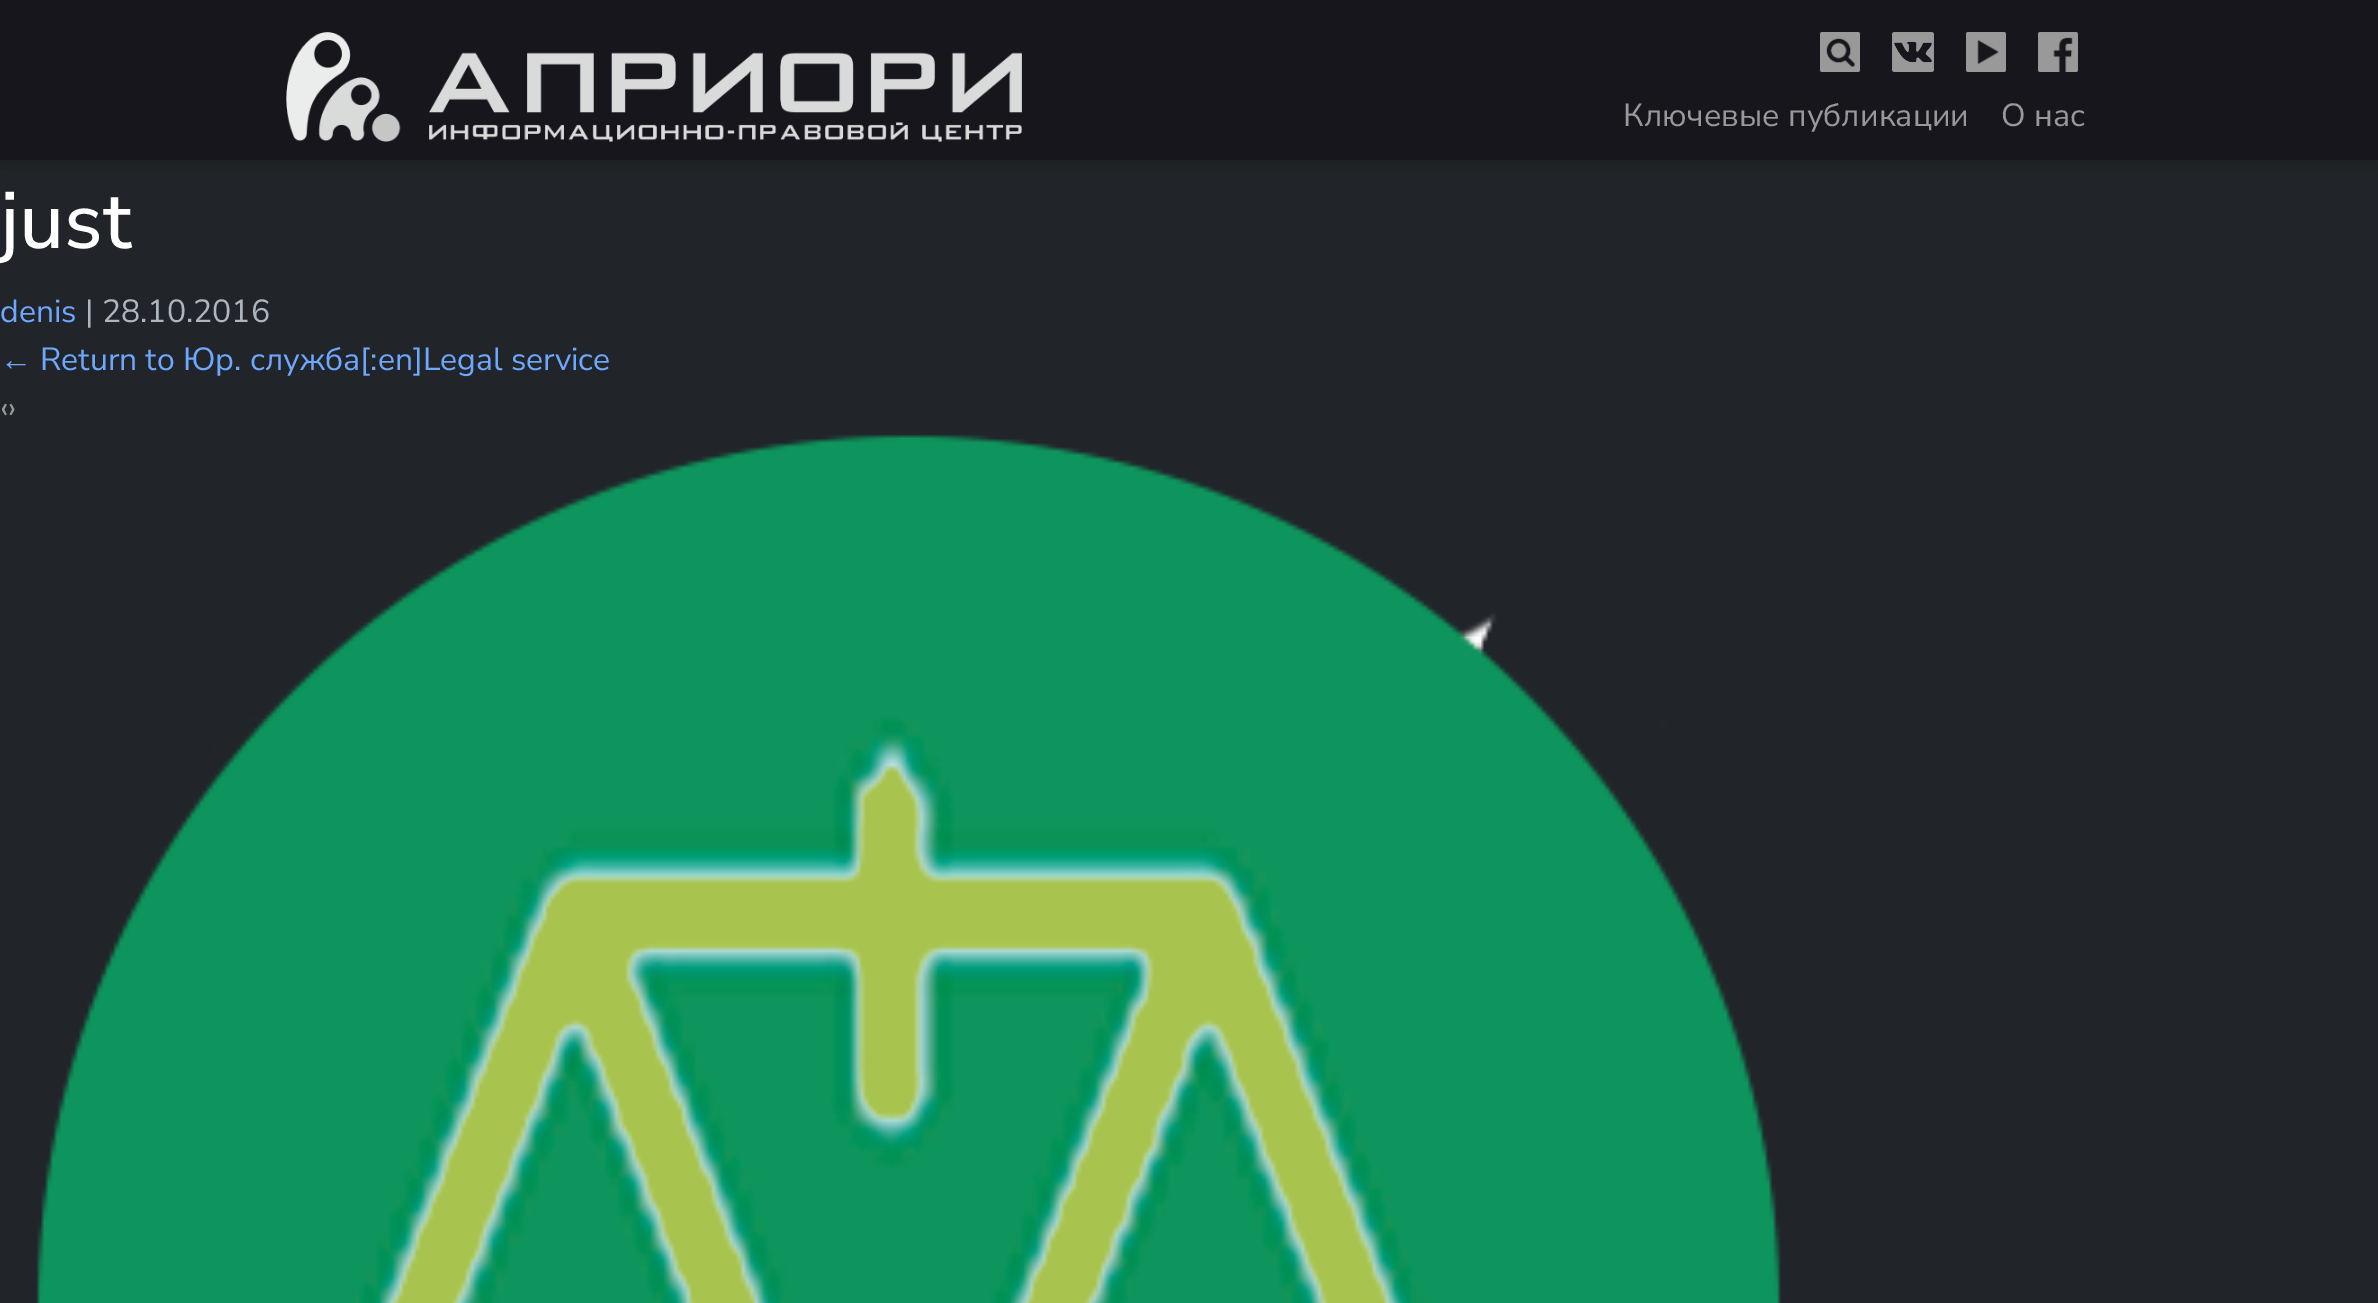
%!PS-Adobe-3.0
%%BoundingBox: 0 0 2378 1303
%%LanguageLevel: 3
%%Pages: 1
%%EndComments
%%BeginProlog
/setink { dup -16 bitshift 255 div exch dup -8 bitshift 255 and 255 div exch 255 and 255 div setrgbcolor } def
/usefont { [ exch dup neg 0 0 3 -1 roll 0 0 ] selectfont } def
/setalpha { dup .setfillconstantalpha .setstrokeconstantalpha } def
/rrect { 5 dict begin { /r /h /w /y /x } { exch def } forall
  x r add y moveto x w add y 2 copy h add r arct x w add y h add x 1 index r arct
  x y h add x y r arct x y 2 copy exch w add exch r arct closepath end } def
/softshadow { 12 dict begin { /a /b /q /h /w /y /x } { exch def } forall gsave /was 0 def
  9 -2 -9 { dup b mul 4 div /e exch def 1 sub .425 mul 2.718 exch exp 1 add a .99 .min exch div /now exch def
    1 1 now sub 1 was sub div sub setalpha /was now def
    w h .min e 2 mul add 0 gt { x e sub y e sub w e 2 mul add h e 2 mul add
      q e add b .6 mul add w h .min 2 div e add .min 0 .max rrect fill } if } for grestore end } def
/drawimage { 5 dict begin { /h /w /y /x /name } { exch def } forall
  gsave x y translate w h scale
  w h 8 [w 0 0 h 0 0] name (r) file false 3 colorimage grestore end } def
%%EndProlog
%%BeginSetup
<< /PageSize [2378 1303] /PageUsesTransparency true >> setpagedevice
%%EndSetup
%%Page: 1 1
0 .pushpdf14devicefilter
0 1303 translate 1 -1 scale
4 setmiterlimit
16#212529 setink
0 0 2378 1303 rectfill
16#1D1D1D setink
0 0 2378 160 0 15 1 softshadow
16#17161D setink
0 0 2378 160 rectfill
(img1.raw) 286 32 736 110 drawimage
(img2.raw) 1820 32 40 40 drawimage
(img3.raw) 1892 32 42 40 drawimage
(img4.raw) 1966 32 40 40 drawimage
(img5.raw) 2038 32 40 40 drawimage
/NunitoSans-Regular 32 usefont
16#999999 setink
1623 126 moveto (Ключевые публикации) show
2001 126 moveto (О нас) show
/NunitoSans-Medium 80 usefont
16#FFFFFF setink
0 248 moveto (just) show
/NunitoSans-Regular 32 usefont
16#6EA8FE setink
0 322 moveto (denis) show
16#ADB5BD setink
85 322 moveto (| 28.10.2016) show
/LiberationSans-Regular 32 usefont
16#6EA8FE setink
0 370 moveto (←) show
/NunitoSans-Regular 32 usefont
40 370 moveto (Return to Юр. служба[:en]Legal service) show
16#999999 setink
0 418 moveto (‹›) show
(img6.raw) 36 434 1745 869 drawimage
.poppdf14devicefilter showpage
%%EOF
